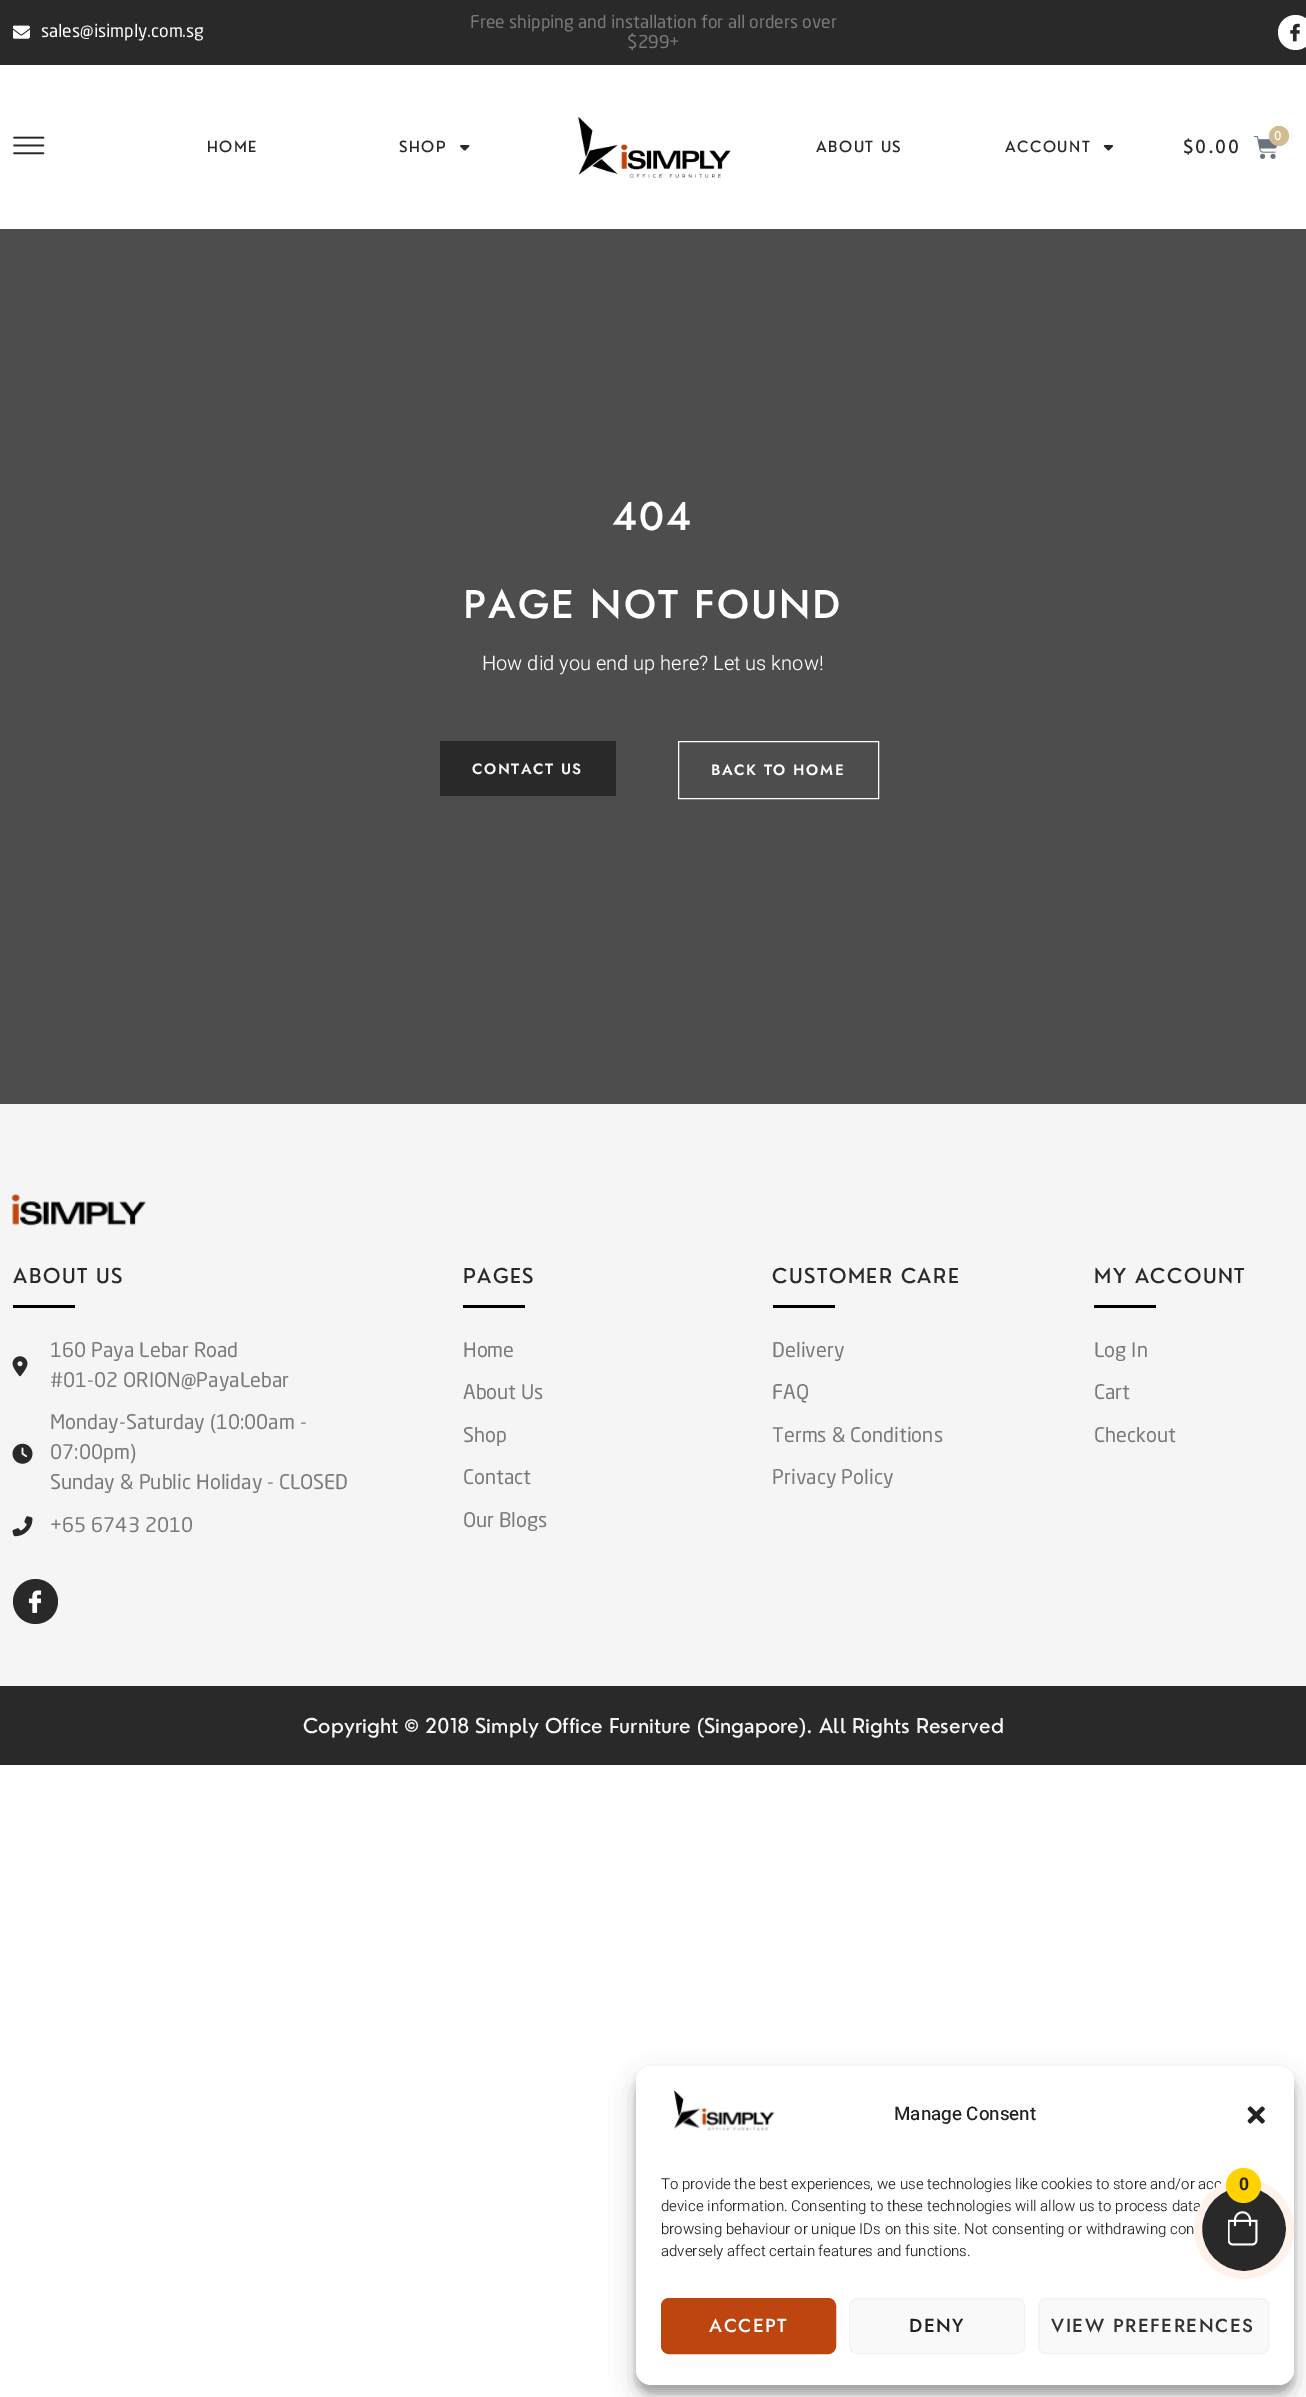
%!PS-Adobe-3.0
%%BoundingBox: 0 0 1306 2397
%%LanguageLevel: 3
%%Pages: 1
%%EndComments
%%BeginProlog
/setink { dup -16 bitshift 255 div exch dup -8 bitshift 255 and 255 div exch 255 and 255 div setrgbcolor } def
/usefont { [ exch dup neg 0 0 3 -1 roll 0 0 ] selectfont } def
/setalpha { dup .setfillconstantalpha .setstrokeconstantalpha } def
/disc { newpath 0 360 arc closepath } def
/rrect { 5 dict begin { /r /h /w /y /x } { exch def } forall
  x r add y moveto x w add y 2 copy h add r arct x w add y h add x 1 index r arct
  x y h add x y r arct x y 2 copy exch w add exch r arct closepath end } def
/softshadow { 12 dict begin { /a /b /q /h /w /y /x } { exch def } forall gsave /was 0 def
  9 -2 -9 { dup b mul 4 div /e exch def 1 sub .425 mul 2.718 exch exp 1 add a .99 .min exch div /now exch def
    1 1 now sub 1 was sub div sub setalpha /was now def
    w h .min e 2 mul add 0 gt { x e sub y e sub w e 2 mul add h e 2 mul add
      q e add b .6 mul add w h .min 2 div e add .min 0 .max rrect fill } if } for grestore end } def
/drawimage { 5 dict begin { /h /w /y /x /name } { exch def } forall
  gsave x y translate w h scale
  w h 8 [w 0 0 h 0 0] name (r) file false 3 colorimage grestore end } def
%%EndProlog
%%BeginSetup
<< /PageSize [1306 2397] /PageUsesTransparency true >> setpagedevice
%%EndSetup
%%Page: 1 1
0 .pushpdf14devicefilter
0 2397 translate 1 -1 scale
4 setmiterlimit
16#FFFFFF setink
0 0 1306 2397 rectfill
16#292929 setink
0 0 1306 65 rectfill
(img1.raw) 13 25 17 14 drawimage
/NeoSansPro-Regular 17.5 usefont
16#FFFFFF setink
41 37 moveto (sales@isimply.com.sg) show
16#7A7A7A setink
470 28 moveto (Free shipping and installation for all orders over) show
627 48 moveto ($299+) show
16#FFFFFF setink
1295.5 32.5 17.5 disc fill
(img2.raw) 1290 23 10 19 drawimage
(img3.raw) 13 136 32 19 drawimage
/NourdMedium-Medium 15 usefont
16#292929 setink
207 152 moveto 1.5 0 (HOME) ashow
399 152 moveto 1.5 0 (SHOP) ashow
(img4.raw) 460 145 10 6 drawimage
(img5.raw) 578 116 153 62 drawimage
816 152 moveto 1.5 0 (ABOUT US) ashow
1005 152 moveto 1.5 0 (ACCOUNT) ashow
(img6.raw) 1103 145 11 6 drawimage
(img7.raw) 1253 136 24 23 drawimage
16#D1BC92 setink
1279 136 10 disc fill
/NourdMedium-Medium 12 usefont
16#FFFFFF setink
1274 140 moveto 1.6 0 (0) ashow
/NourdMedium-Medium 17.5 usefont
16#292929 setink
1183 153 moveto 1.6 0 ($0.00) ashow
16#4D4D4D setink
0 229 1306 875 rectfill
/Jost-Medium 40 usefont
16#FFFFFF setink
612 530 moveto 2 0 (404) ashow
463 618 moveto 2 0 (PAGE NOT FOUND) ashow
/Heebo-Light 20 usefont
482 670 moveto (How did you end up here? Let us know!) show
16#292929 setink
440 741 176 55 rectfill
/Jost-SemiBold 15 usefont
16#F5F5F5 setink
472 774 moveto 1.6 0 (CONTACT US) ashow
16#FFFFFF setink
678.5 741.5 200 57 rectstroke
711 775 moveto 1.6 0 (BACK TO HOME) ashow
16#F5F5F5 setink
0 1104 1306 582 rectfill
(img8.raw) 11 1193 136 33 drawimage
/NourdMedium-Medium 20 usefont
16#292929 setink
13 1283 moveto 1.5 0 (ABOUT US) ashow
16#000000 setink
13 1305 62 3 rectfill
(img9.raw) 12 1356 16 21 drawimage
/NeoSansPro-Regular 20 usefont
16#7A7A7A setink
50 1357 moveto (160 Paya Lebar Road) show
50 1387 moveto (#01-02 ORION@PayaLebar) show
(img10.raw) 12 1443 21 21 drawimage
[
    [(Monday-Saturday \(10:00am -) 50 1429]
    [(07:00pm\)) 50 1459]
    [(Sunday & Public Holiday - CLOSED) 50 1489]
] { aload pop moveto show } forall
(img11.raw) 12 1516 21 21 drawimage
50 1532 moveto (+65 6743 2010) show
16#292929 setink
35.5 1601.5 22.5 disc fill
(img12.raw) 28 1590 14 23 drawimage
/NourdMedium-Medium 20 usefont
463 1283 moveto 1.5 0 (PAGES) ashow
16#000000 setink
463 1305 62 3 rectfill
/NeoSansPro-Regular 20 usefont
16#7A7A7A setink
[
    [(Home) 463 1357]
    [(About Us) 463 1399]
    [(Shop) 463 1442]
    [(Contact) 463 1484]
    [(Our Blogs) 463 1527]
] { aload pop moveto show } forall
/NourdMedium-Medium 20 usefont
16#292929 setink
772 1283 moveto 1.5 0 (CUSTOMER CARE) ashow
16#000000 setink
773 1305 62 3 rectfill
/NeoSansPro-Regular 20 usefont
16#7A7A7A setink
[
    [(Delivery) 772 1357]
    [(FAQ) 772 1399]
    [(Terms & Conditions) 772 1442]
    [(Privacy Policy) 772 1484]
] { aload pop moveto show } forall
/NourdMedium-Medium 20 usefont
16#292929 setink
1094 1283 moveto 1.5 0 (MY ACCOUNT) ashow
16#000000 setink
1094 1305 62 3 rectfill
/NeoSansPro-Regular 20 usefont
16#7A7A7A setink
[
    [(Log In) 1094 1357]
    [(Cart) 1094 1399]
    [(Checkout) 1094 1442]
] { aload pop moveto show } forall
16#292929 setink
0 1686 1306 79 rectfill
/NourdMedium-Medium 20 usefont
16#F5F5F5 setink
303 1733 moveto (Copyright © 2018 Simply Office Furniture \(Singapore\).) show
819 1733 moveto (All Rights Reserved) show
16#000000 setink
636 2074 658 319 15 4 0.23 softshadow
636 2079 658 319 15 12.5 0.19 softshadow
16#FFFFFF setink
636 2066 658 319 15 rrect fill
(img13.raw) 674 2090 101 41 drawimage
/Heebo-Medium 18.75 usefont
16#222222 setink
894 2120 moveto (Manage Consent) show
(img14.raw) 1247 2106 18 18 drawimage
/Heebo-Light 15 usefont
[
    [(To provide the best experiences, we use technologies like cookies to store and/or acc) 661 2189]
    [(device information. Consenting to these technologies will allow us to process data) 661 2211]
    [(browsing behaviour or unique IDs on this site. Not consenting or withdrawing con) 661 2234]
    [(adversely affect certain features and functions.) 661 2256]
] { aload pop moveto show } forall
16#BE4410 setink
661.5 2298.5 174 55 7.5 rrect gsave fill grestore
stroke
/Jost-Medium 18.75 usefont
16#FFFFFF setink
709 2332 moveto 1.6 0 (ACCEPT) ashow
16#F9F9F9 setink
849.5 2298.5 175 55 7.5 rrect gsave fill grestore
16#F2F2F2 setink
stroke
16#222222 setink
909 2332 moveto 1.6 0 (DENY) ashow
16#F9F9F9 setink
1038.5 2298.5 230 55 7.5 rrect gsave fill grestore
16#F2F2F2 setink
stroke
16#333333 setink
1051 2332 moveto 1.6 0 (VIEW PREFERENCES) ashow
16#292929 setink
1244 2229 46 disc gsave fill grestore
16#FEF2EB setink
8 setlinewidth
stroke
16#FFD200 setink
1243.5 2185.5 17.5 disc fill
/Heebo-Bold 17.5 usefont
16#292929 setink
1239 2190 moveto -1 0 (0) ashow
(img15.raw) 1228 2211 30 35 drawimage
.poppdf14devicefilter showpage
%%EOF
